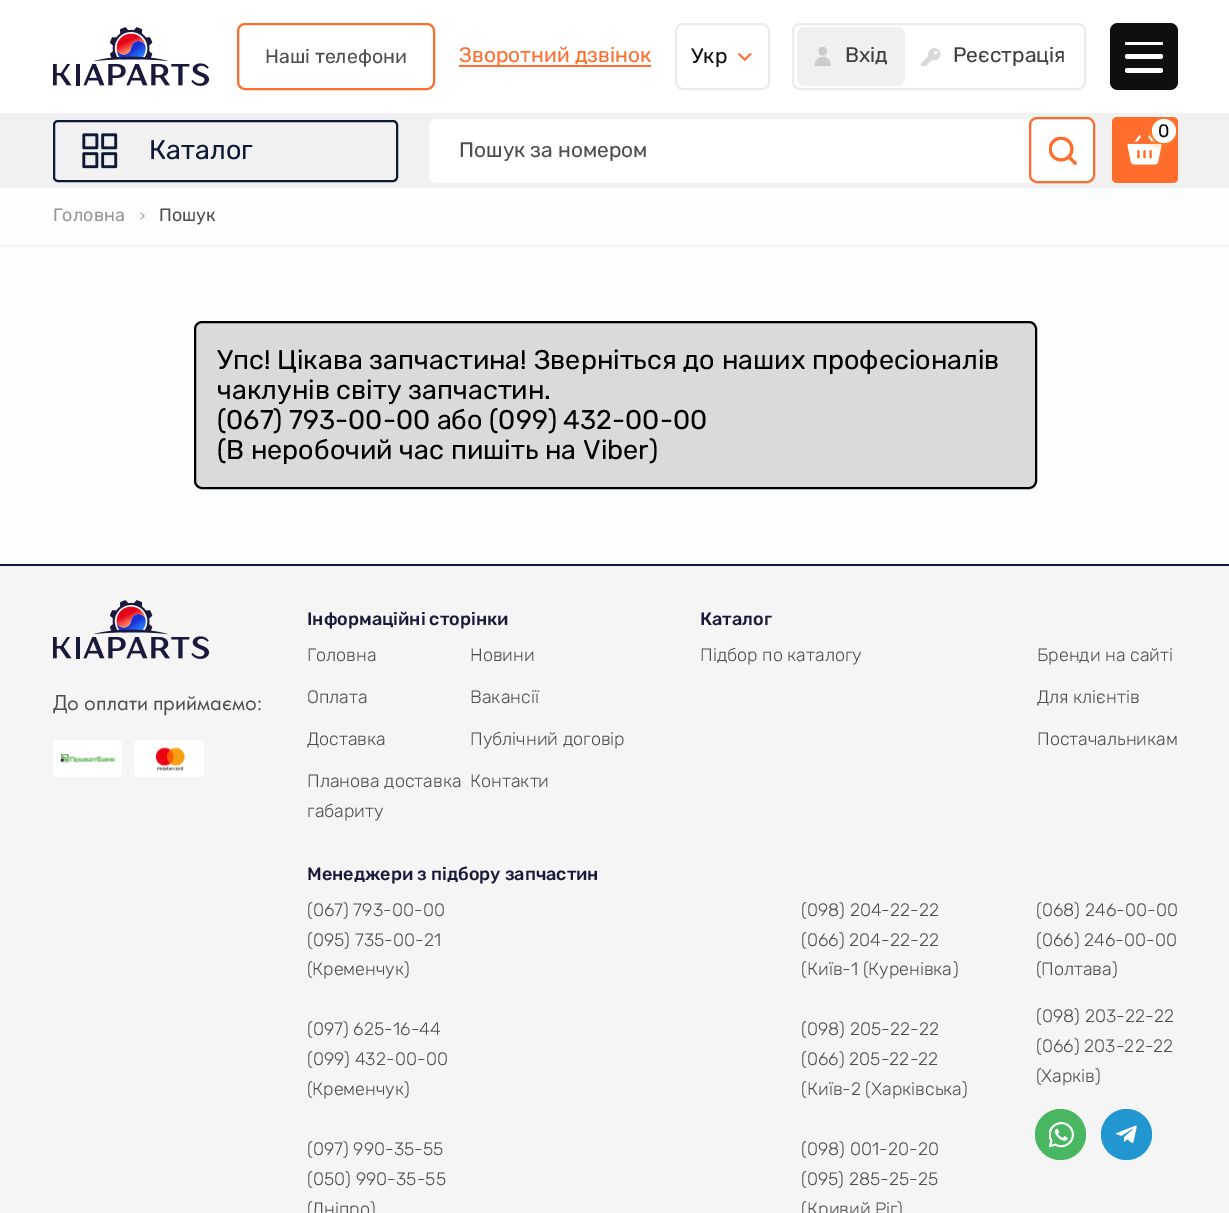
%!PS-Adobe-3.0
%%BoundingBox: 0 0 1229 1213
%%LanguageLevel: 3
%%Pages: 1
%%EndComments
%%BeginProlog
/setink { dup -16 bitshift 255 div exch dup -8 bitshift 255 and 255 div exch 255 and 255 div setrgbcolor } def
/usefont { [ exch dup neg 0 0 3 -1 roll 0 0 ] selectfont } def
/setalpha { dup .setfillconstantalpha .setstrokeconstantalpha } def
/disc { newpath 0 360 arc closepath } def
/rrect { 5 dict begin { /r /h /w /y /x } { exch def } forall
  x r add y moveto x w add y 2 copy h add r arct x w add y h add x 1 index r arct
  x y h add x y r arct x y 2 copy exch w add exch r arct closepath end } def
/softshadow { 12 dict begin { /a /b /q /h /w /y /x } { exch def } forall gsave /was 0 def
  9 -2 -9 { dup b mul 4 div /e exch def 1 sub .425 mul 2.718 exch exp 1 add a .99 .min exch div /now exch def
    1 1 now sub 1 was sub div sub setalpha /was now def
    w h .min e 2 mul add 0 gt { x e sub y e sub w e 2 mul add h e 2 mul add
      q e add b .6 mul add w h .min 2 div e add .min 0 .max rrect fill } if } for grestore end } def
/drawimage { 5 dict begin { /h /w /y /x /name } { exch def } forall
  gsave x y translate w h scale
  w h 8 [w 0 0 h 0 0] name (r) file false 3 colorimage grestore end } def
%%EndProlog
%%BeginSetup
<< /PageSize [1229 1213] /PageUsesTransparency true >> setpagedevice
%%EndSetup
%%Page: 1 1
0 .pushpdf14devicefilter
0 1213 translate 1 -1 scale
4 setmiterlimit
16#FCFDFF setink
0 0 1229 1213 rectfill
16#FFFFFF setink
0 0 1229 113 rectfill
(img1.raw) 53 27 157 59 drawimage
16#FE6D2C setink
2 setlinewidth
238 24 196 65 7 rrect stroke
/Rubik-Regular 19.5 usefont
16#4E4E4E setink
265 63 moveto (Наші телефони) show
16#FE6D2C setink
459 65 192 2 rectfill
/Rubik-Regular 21 usefont
459 62 moveto (Зворотний дзвінок) show
16#EBEBEB setink
676 24 93 65 7 rrect stroke
16#131011 setink
691 63 moveto (Укр) show
(img2.raw) 738 53 14 8 drawimage
16#EBEBEB setink
793 24 292 65 7 rrect stroke
16#F0F0F0 setink
797 27 108 59 8 rrect fill
(img3.raw) 814 47 17 19 drawimage
16#3F3F3F setink
845 62 moveto (Вхід) show
(img4.raw) 921 48 20 18 drawimage
953 62 moveto (Реєстрація) show
16#0F0F0F setink
1110 23 68 67 8 rrect fill
16#FFFFFF setink
1125 42 38 3 1.5 rrect fill
1125 54 38 5 2.5 rrect fill
1125 68 38 5 2.5 rrect fill
16#F1F1F1 setink
0 113 1229 75 rectfill
16#FE6D2C setink
1112 117 66 66 5 rrect fill
(img5.raw) 1127 135 35 30 drawimage
16#E89417 setink
1148 123 24 24 12 3 0.3 softshadow
16#FFFFFF setink
1164 131 12 disc fill
/Rubik-Regular 18 usefont
16#000000 setink
1158 137 moveto (0) show
16#0D1935 setink
54 121 343 60 4 rrect stroke
(img6.raw) 82 133 36 36 drawimage
/Rubik-Regular 27 usefont
149 159 moveto (Каталог) show
16#FFFFFF setink
429 119 666 64 8 rrect fill
/Rubik-Regular 21 usefont
16#4E4E4E setink
459 157 moveto (Пошук за номером) show
16#FFFFFF setink
1030 118 64 64 7 rrect gsave fill grestore
16#FE6D2C setink
stroke
(img7.raw) 1049 137 28 28 drawimage
16#F1F1F1 setink
0 245 1229 2 rectfill
/Rubik-Regular 18 usefont
16#969696 setink
53 221 moveto (Головна) show
(img8.raw) 140 212 5 8 drawimage
16#4E4E4E setink
159 221 moveto (Пошук) show
16#DADADA setink
195 322 841 166 7 rrect gsave fill grestore
16#000000 setink
stroke
/Rubik-Regular 27 usefont
[
    [(Упс! Цікава запчастина! Зверніться до наших професіоналів) 217 369]
    [(чаклунів світу запчастин.) 217 399]
    [(\(067\) 793-00-00 або \(099\) 432-00-00) 217 429]
    [(\(В неробочий час пишіть на Viber\)) 217 459]
] { aload pop moveto show } forall
16#F5F5F5 setink
0 566 1229 647 rectfill
16#1A193B setink
0 564 1229 2 rectfill
(img9.raw) 53 600 157 59 drawimage
/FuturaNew-Regular 22.5 usefont
16#4E4E4E setink
53 710 moveto (До оплати приймаємо:) show
16#FFFFFF setink
53 740 69 37 5 rrect fill
(img10.raw) 60 754 56 9 drawimage
134 740 70 37 5 rrect fill
(img11.raw) 155 747 30 24 drawimage
/Rubik-Medium 18 usefont
16#1A193B setink
307 625 moveto (Інформаційні сторінки) show
/Rubik-Light 18 usefont
16#4E4E4E setink
[
    [(Головна) 307 661]
    [(Оплата) 307 703]
    [(Доставка) 307 745]
    [(Планова доставка) 307 787]
    [(габариту) 307 817]
    [(Новини) 470 661]
    [(Вакансії) 470 703]
    [(Публічний договір) 470 745]
    [(Контакти) 470 787]
] { aload pop moveto show } forall
/Rubik-Medium 18 usefont
16#1A193B setink
700 625 moveto (Каталог) show
/Rubik-Light 18 usefont
16#4E4E4E setink
[
    [(Підбор по каталогу) 700 661]
    [(Бренди на сайті) 1037 661]
    [(Для клієнтів) 1037 703]
    [(Постачальникам) 1037 745]
] { aload pop moveto show } forall
/Rubik-Medium 18 usefont
16#1A193B setink
307 880 moveto (Менеджери з підбору запчастин) show
/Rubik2-Light 18 usefont
16#4E4E4E setink
[
    [(\(067\) 793-00-00) 307 916]
    [(\(095\) 735-00-21) 307 946]
    [(\() 307 975]
] { aload pop moveto show } forall
/Rubik-Light 18 usefont
312 975 moveto (Кременчук) show
/Rubik2-Light 18 usefont
[
    [(\)) 404 975]
    [(\(097\) 625-16-44) 307 1035]
    [(\(099\) 432-00-00) 307 1065]
    [(\() 307 1095]
] { aload pop moveto show } forall
/Rubik-Light 18 usefont
312 1095 moveto (Кременчук) show
/Rubik2-Light 18 usefont
[
    [(\)) 404 1095]
    [(\(097\) 990-35-55) 307 1155]
    [(\(050\) 990-35-55) 307 1185]
    [(\() 307 1215]
] { aload pop moveto show } forall
/Rubik-Light 18 usefont
312 1215 moveto (Дніпро) show
/Rubik2-Light 18 usefont
[
    [(\)) 370 1215]
    [(\(098\) 204-22-22) 801 916]
    [(\(066\) 204-22-22) 801 946]
    [(\() 801 975]
] { aload pop moveto show } forall
/Rubik-Light 18 usefont
807 975 moveto (Київ) show
/Rubik2-Light 18 usefont
842 975 moveto (-1 \() show
/Rubik-Light 18 usefont
868 975 moveto (Куренівка) show
/Rubik2-Light 18 usefont
[
    [(\)) 953 975]
    [(\(098\) 205-22-22) 801 1035]
    [(\(066\) 205-22-22) 801 1065]
    [(\() 801 1095]
] { aload pop moveto show } forall
/Rubik-Light 18 usefont
807 1095 moveto (Київ) show
/Rubik2-Light 18 usefont
842 1095 moveto (-2 \() show
/Rubik-Light 18 usefont
871 1095 moveto (Харківська) show
/Rubik2-Light 18 usefont
[
    [(\)) 962 1095]
    [(\(098\) 001-20-20) 801 1155]
    [(\(095\) 285-25-25) 801 1185]
    [(\() 801 1215]
] { aload pop moveto show } forall
/Rubik-Light 18 usefont
807 1215 moveto (Кривий Ріг) show
/Rubik2-Light 18 usefont
[
    [(\)) 897 1215]
    [(\(068\) 246-00-00) 1036 916]
    [(\(066\) 246-00-00) 1036 946]
    [(\() 1036 975]
] { aload pop moveto show } forall
/Rubik-Light 18 usefont
1041 975 moveto (Полтава) show
/Rubik2-Light 18 usefont
[
    [(\)) 1112 975]
    [(\(098\) 203-22-22) 1036 1022]
    [(\(066\) 203-22-22) 1036 1052]
    [(\() 1036 1082]
] { aload pop moveto show } forall
/Rubik-Light 18 usefont
1041 1082 moveto (Харків) show
/Rubik2-Light 18 usefont
1095 1082 moveto (\)) show
16#49B661 setink
1060.5 1134.5 25.5 disc fill
(img12.raw) 1049 1122 25 26 drawimage
16#2296D0 setink
1126.5 1134.5 25.5 disc fill
(img13.raw) 1116 1125 21 18 drawimage
.poppdf14devicefilter showpage
%%EOF
